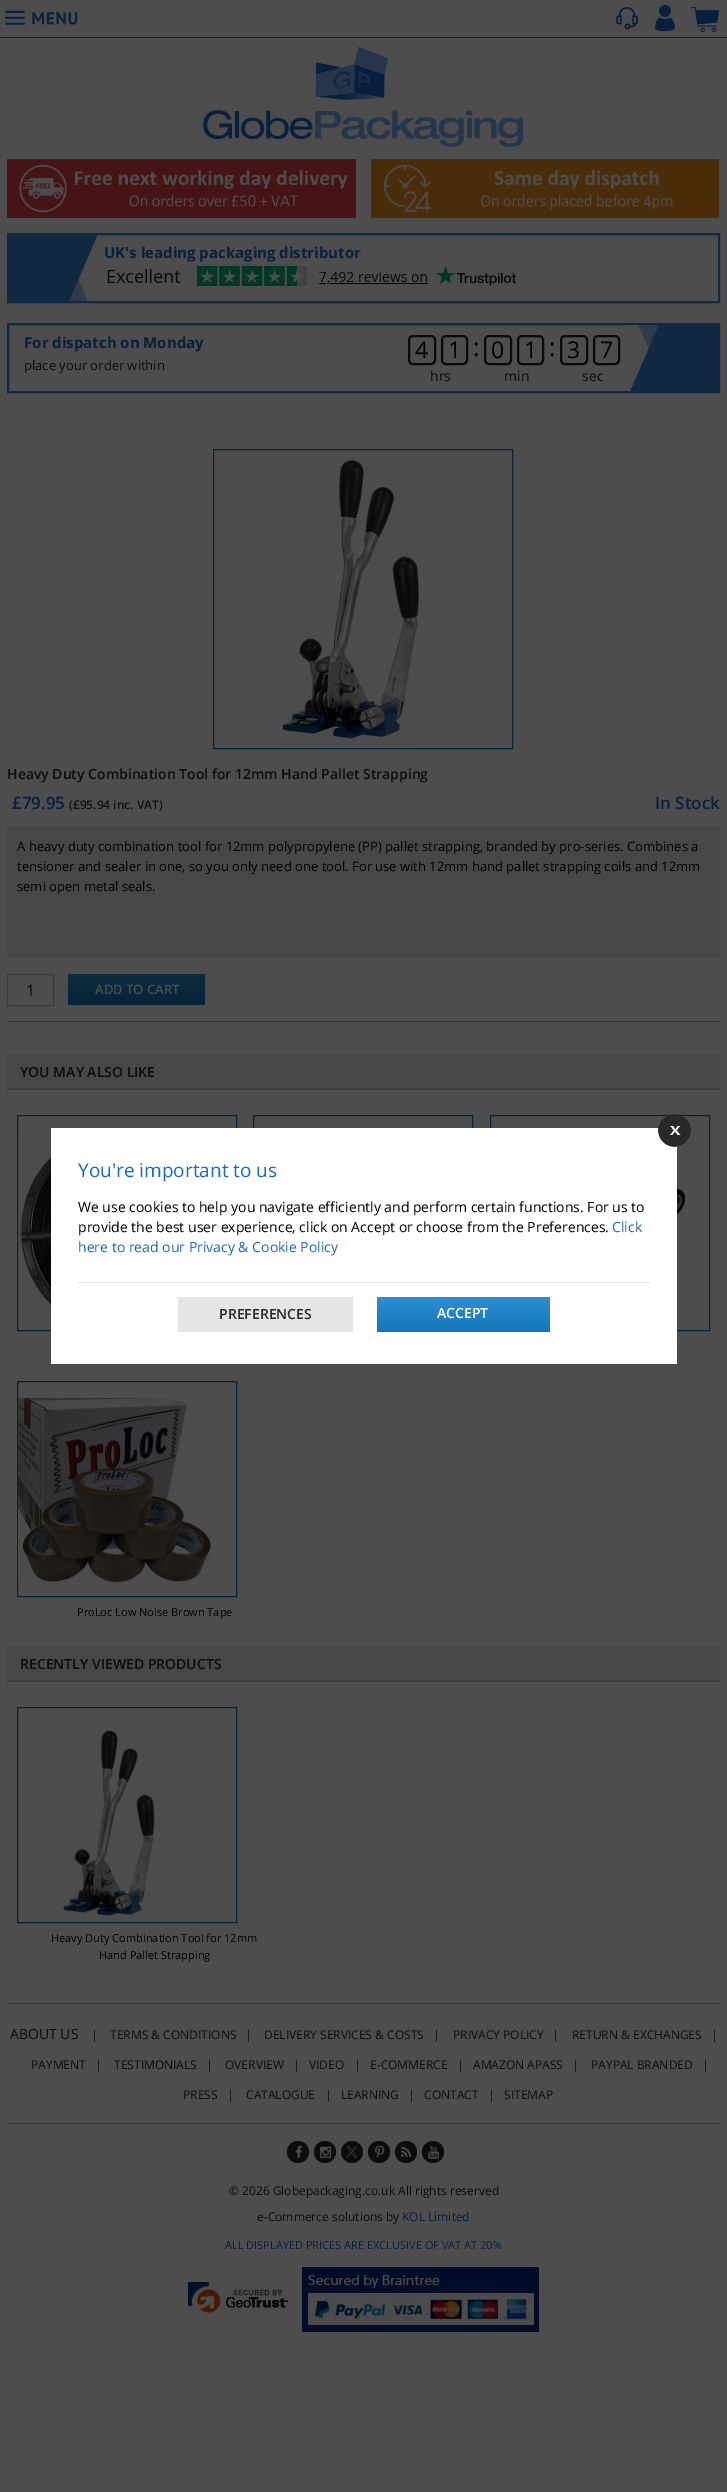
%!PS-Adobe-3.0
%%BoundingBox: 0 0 727 2492
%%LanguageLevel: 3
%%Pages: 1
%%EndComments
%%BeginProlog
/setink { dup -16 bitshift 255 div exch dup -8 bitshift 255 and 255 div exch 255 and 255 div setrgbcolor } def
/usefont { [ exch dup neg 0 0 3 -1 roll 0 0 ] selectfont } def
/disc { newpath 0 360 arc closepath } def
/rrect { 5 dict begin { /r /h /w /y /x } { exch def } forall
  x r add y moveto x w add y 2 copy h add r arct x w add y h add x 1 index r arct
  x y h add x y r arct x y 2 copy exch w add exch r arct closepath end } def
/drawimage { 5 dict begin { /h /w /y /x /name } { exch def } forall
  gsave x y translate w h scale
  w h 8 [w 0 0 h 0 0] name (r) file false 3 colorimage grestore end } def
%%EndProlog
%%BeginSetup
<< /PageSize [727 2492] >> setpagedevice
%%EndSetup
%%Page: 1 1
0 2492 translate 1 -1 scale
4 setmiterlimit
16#4D4D4D setink
0 0 727 2492 rectfill
16#081F3E setink
0 37 727 1 rectfill
(img1.raw) 5 10 73 15 drawimage
(img2.raw) 616 7 22 23 drawimage
(img3.raw) 655 5 20 26 drawimage
(img4.raw) 691 7 28 25 drawimage
(img5.raw) 203 47 320 100 drawimage
16#461416 setink
7 159 349 59 rectfill
(img6.raw) 18 164 330 49 drawimage
16#4A2C09 setink
371 159 348 59 rectfill
(img7.raw) 383 164 290 49 drawimage
16#112944 setink
2 setlinewidth
8 234 711 68 rectstroke
(img8.raw) 9 235 89 66 drawimage
/OpenSans-Bold 15 usefont
16#081F3E setink
104 258 moveto (UK's leading packaging distributor) show
(img9.raw) 107 266 409 20 drawimage
16#112944 setink
8 324 711 68 rectstroke
16#081F3E setink
24 348 moveto (For dispatch on Monday) show
/OpenSans-Regular 13 usefont
16#0C0C0C setink
24 370 moveto (place your order within) show
16#0A0A0A setink
409 336 26 28 4 rrect stroke
/OpenSans-Regular 23 usefont
16#000000 setink
415 358 moveto (4) show
16#0A0A0A setink
442 336 25 28 4 rrect stroke
16#000000 setink
448 358 moveto (1) show
/OpenSans-Regular 14 usefont
16#0C0C0C setink
430 381 moveto (hrs) show
/OpenSans-Regular 25 usefont
16#000000 setink
473 356 moveto (:) show
16#0A0A0A setink
485 336 26 28 4 rrect stroke
/OpenSans-Regular 23 usefont
16#000000 setink
491 358 moveto (0) show
16#0A0A0A setink
518 336 25 28 4 rrect stroke
16#000000 setink
524 358 moveto (1) show
/OpenSans-Regular 14 usefont
16#0C0C0C setink
504 381 moveto (min) show
/OpenSans-Regular 25 usefont
16#000000 setink
549 356 moveto (:) show
16#0A0A0A setink
561 336 26 28 4 rrect stroke
/OpenSans-Regular 23 usefont
16#000000 setink
567 358 moveto (3) show
16#0A0A0A setink
594 336 25 28 4 rrect stroke
16#000000 setink
600 358 moveto (7) show
/OpenSans-Regular 14 usefont
16#0C0C0C setink
582 381 moveto (sec) show
(img10.raw) 630 325 88 66 drawimage
16#062338 setink
1 setlinewidth
213.5 449.5 299 299 rectstroke
(img11.raw) 280 458 139 287 drawimage
/OpenSans-SemiBold 14 usefont
16#0C0C0C setink
7 779 moveto (Heavy Duty Combination Tool for 12mm Hand Pallet Strapping) show
/OpenSans-SemiBold 17 usefont
16#081F3E setink
12 809 moveto (£79.95) show
/OpenSans-SemiBold 12 usefont
16#121111 setink
69 809 moveto (\(£95.94 inc. VAT\)) show
/OpenSans-SemiBold 17 usefont
16#081F3E setink
655 809 moveto (In Stock) show
16#474747 setink
7 826 713 133 rectfill
/OpenSans-Regular 13 usefont
16#000000 setink
[
    [(A heavy duty combination tool for 12mm polypropylene \(PP\) pallet strapping, branded by pro-series. Combines a) 17 851]
    [(tensioner and sealer in one, so you only need one tool. For use with 12mm hand pallet strapping coils and 12mm) 17 871]
    [(semi open metal seals.) 17 891]
] { aload pop moveto show } forall
16#323232 setink
7 1021 713 1 rectfill
16#3B3B3B setink
7.5 974.5 46 31 rectstroke
/OpenSans-Regular 16 usefont
16#0C0C0C setink
26 996 moveto (1) show
gsave 68 974 moveto 205 974 lineto 205 1005 lineto 68 1005 lineto closepath clip newpath
<< /ShadingType 2 /ColorSpace /DeviceRGB /Coords [137 974 137 1005] /Extend [true true] /Function << /FunctionType 2 /Domain [0 1] /C0 [0.055 0.169 0.247] /C1 [0.024 0.137 0.22] /N 1 >> >> shfill grestore
/OpenSans-SemiBold 13 usefont
16#4D4D4D setink
95 994 moveto (ADD TO CART) show
16#474747 setink
7 1055 713 33 rectfill
16#3D3D3D setink
7 1088 713 2 rectfill
/OpenSans-SemiBold 14 usefont
16#0C0C0C setink
20 1077 moveto (YOU MAY ALSO LIKE) show
16#062338 setink
17.5 1115.5 219 215 rectstroke
(img12.raw) 20 1136 31 192 drawimage
253.5 1115.5 219 215 rectstroke
490.5 1115.5 219 215 rectstroke
(img13.raw) 677 1142 9 182 drawimage
17.5 1381.5 219 215 rectstroke
(img14.raw) 18 1398 194 185 drawimage
/OpenSans-Regular 11 usefont
16#000000 setink
77 1616 moveto (ProLoc Low Noise Brown Tape) show
16#474747 setink
7 1647 713 33 rectfill
16#3D3D3D setink
7 1680 713 2 rectfill
/OpenSans-SemiBold 14 usefont
16#0C0C0C setink
20 1669 moveto (RECENTLY VIEWED PRODUCTS) show
16#062338 setink
17.5 1707.5 219 215 rectstroke
(img15.raw) 62 1730 93 190 drawimage
/OpenSans-Regular 11 usefont
16#000000 setink
51 1942 moveto (Heavy Duty Combination Tool for 12mm) show
99 1959 moveto (Hand Pallet Strapping) show
16#FFFFFF setink
51 1128 626 236 rectfill
(img16.raw) 658 1114 33 33 drawimage
/OpenSans-Regular 19 usefont
16#1A68CD setink
78 1177 moveto (You're important to us) show
/OpenSans-Regular 14 usefont
16#000000 setink
78 1212 moveto (We use cookies to help you navigate efficiently and perform certain functions. For us to) show
78 1232 moveto (provide the best user experience, click on Accept or choose from the Preferences.) show
16#1A68CD setink
612 1232 moveto (Click) show
78 1252 moveto (here to read our Privacy & Cookie Policy) show
16#E5E5E5 setink
78 1282 572 1 rectfill
178 1297 175 35 rectfill
/OpenSans-SemiBold 14 usefont
16#292929 setink
219 1319 moveto (PREFERENCES) show
gsave 377 1297 moveto 550 1297 lineto 550 1332 lineto 377 1332 lineto closepath clip newpath
<< /ShadingType 2 /ColorSpace /DeviceRGB /Coords [464 1297 464 1332] /Extend [true true] /Function << /FunctionType 2 /Domain [0 1] /C0 [0.176 0.557 0.824] /C1 [0.082 0.463 0.729] /N 1 >> >> shfill grestore
16#FFFFFF setink
437 1318 moveto (ACCEPT) show
16#393939 setink
7 2003 713 1 rectfill
7 2123 713 1 rectfill
/OpenSans-Regular 14 usefont
16#0C0C0C setink
10 2039 moveto (ABOUT US) show
/OpenSans-Regular 12 usefont
[
    [(|) 91 2039]
    [(TERMS & CONDITIONS) 110 2039]
    [(|) 245 2039]
    [(DELIVERY SERVICES & COSTS) 264 2039]
    [(|) 433 2039]
    [(PRIVACY POLICY) 453 2039]
    [(|) 552 2039]
    [(RETURN & EXCHANGES) 572 2039]
    [(|) 711 2039]
    [(PAYMENT) 31 2069]
    [(|) 95 2069]
    [(TESTIMONIALS) 114 2069]
    [(|) 206 2069]
    [(OVERVIEW) 225 2069]
    [(|) 293 2069]
    [(VIDEO) 309 2069]
    [(|) 354 2069]
    [(E-COMMERCE) 370 2069]
    [(|) 457 2069]
    [(AMAZON APASS) 473 2069]
    [(|) 572 2069]
    [(PAYPAL BRANDED) 591 2069]
    [(|) 702 2069]
    [(PRESS) 183 2099]
    [(|) 227 2099]
    [(CATALOGUE) 246 2099]
    [(|) 325 2099]
    [(LEARNING) 341 2099]
    [(|) 408 2099]
    [(CONTACT) 424 2099]
    [(|) 488 2099]
    [(SITEMAP) 504 2099]
] { aload pop moveto show } forall
298 2152 11 disc fill
(img17.raw) 295 2145 7 13 drawimage
325 2152 11 disc fill
(img18.raw) 320 2146 12 12 drawimage
352 2152 11 disc fill
(img19.raw) 346 2146 12 12 drawimage
379 2152 11 disc fill
(img20.raw) 375 2145 10 13 drawimage
406 2152 11 disc fill
(img21.raw) 401 2146 11 11 drawimage
433 2152 11 disc fill
(img22.raw) 428 2145 11 14 drawimage
229 2195 moveto (© 2026 Globepackaging.co.uk All rights reserved) show
257 2221 moveto (e-Commerce solutions by) show
16#081F3E setink
402 2221 moveto (KOL Limited) show
/OpenSans-Regular 11 usefont
225 2249 moveto (ALL DISPLAYED PRICES ARE EXCLUSIVE OF VAT AT 20%) show
(img23.raw) 188 2282 100 31 drawimage
(img24.raw) 302 2267 237 65 drawimage
showpage
%%EOF
